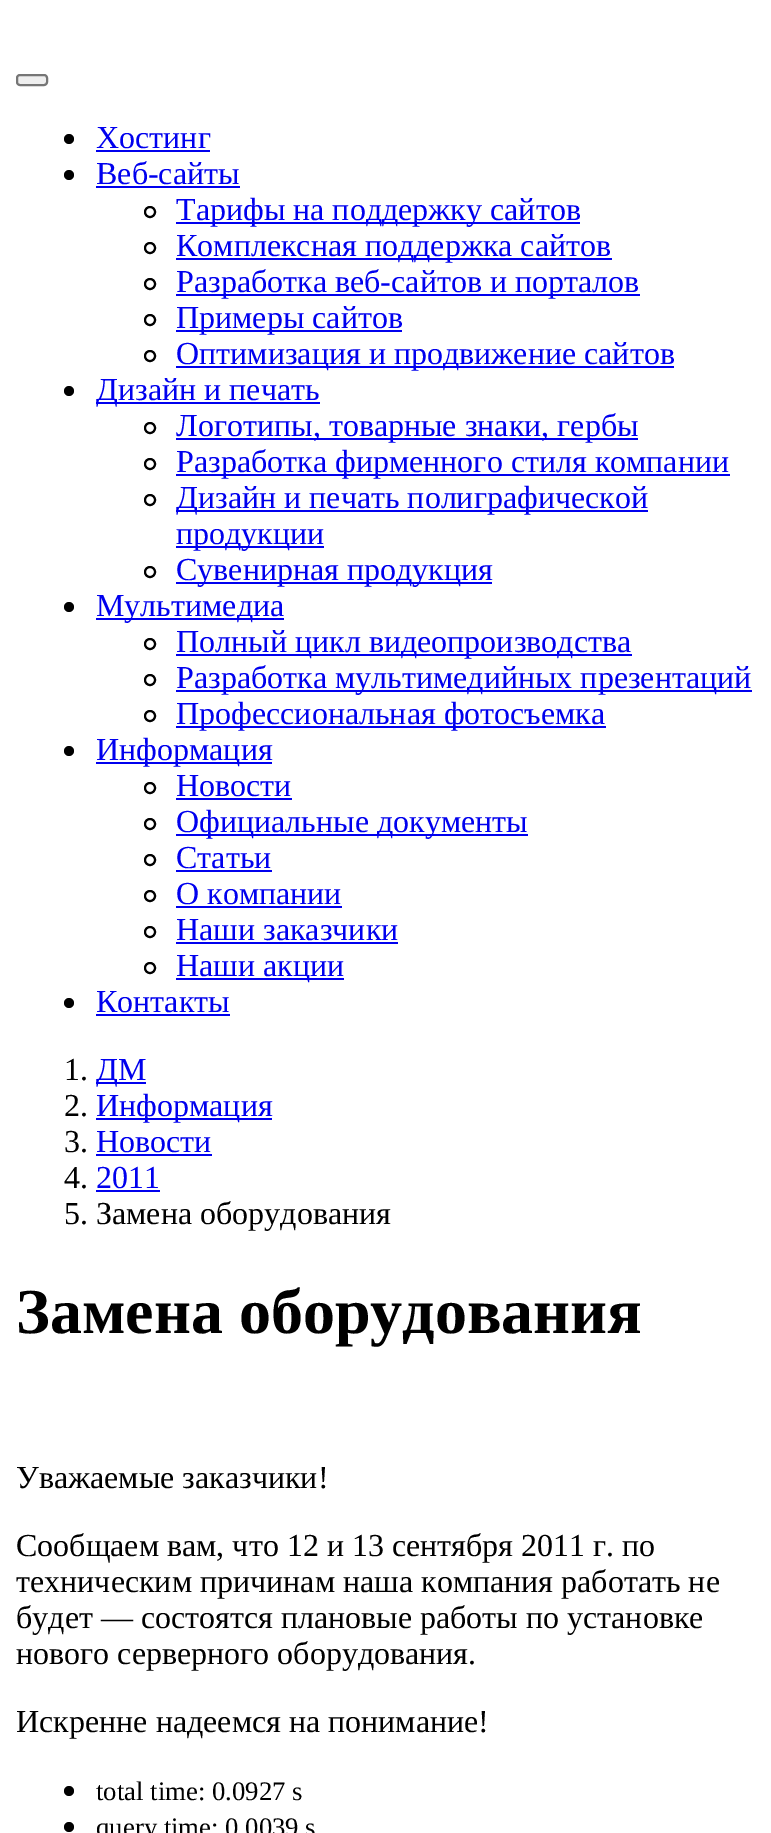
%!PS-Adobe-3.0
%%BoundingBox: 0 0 771 1833
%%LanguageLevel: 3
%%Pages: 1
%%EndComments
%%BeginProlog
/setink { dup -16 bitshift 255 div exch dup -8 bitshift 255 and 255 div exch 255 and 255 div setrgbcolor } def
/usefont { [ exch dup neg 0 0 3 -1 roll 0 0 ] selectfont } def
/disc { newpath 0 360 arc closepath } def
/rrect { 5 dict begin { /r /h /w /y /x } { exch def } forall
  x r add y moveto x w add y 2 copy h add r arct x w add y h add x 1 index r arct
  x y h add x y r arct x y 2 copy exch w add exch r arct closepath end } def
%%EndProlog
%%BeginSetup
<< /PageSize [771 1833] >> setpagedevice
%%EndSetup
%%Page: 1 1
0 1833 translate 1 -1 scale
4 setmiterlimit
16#FFFFFF setink
0 0 771 1833 rectfill
16#EFEFEF setink
17 75 30 10 3 rrect gsave fill grestore
16#767676 setink
2 setlinewidth
stroke
16#000000 setink
69 139 5 disc fill
/LiberationSerif-Regular 32 usefont
16#0000EE setink
96 148 moveto (Хостинг) show
96 150 114 2 rectfill
16#000000 setink
69 175 5 disc fill
16#0000EE setink
96 184 moveto (Веб-сайты) show
96 186 144 2 rectfill
16#000000 setink
150 212 5 disc stroke
16#0000EE setink
176 222 404 2 rectfill
176 220 moveto (Тарифы на поддержку сайтов) show
16#000000 setink
150 248 5 disc stroke
16#0000EE setink
176 258 436 2 rectfill
176 256 moveto (Комплексная поддержка сайтов) show
16#000000 setink
150 284 5 disc stroke
16#0000EE setink
176 294 464 2 rectfill
176 292 moveto (Разработка веб-сайтов и порталов) show
16#000000 setink
150 320 5 disc stroke
16#0000EE setink
176 330 226 2 rectfill
176 328 moveto (Примеры сайтов) show
16#000000 setink
150 356 5 disc stroke
16#0000EE setink
176 366 498 2 rectfill
176 364 moveto (Оптимизация и продвижение сайтов) show
16#000000 setink
69 391 5 disc fill
16#0000EE setink
96 402 224 2 rectfill
96 400 moveto (Дизайн и печать) show
16#000000 setink
150 428 5 disc stroke
16#0000EE setink
176 438 462 2 rectfill
176 436 moveto (Логотипы, товарные знаки, гербы) show
16#000000 setink
150 464 5 disc stroke
16#0000EE setink
176 474 554 2 rectfill
176 472 moveto (Разработка фирменного стиля компании) show
16#000000 setink
150 500 5 disc stroke
16#0000EE setink
176 510 472 2 rectfill
176 508 moveto (Дизайн и печать полиграфической) show
176 546 148 2 rectfill
176 544 moveto (продукции) show
16#000000 setink
150 572 5 disc stroke
16#0000EE setink
176 582 316 2 rectfill
176 580 moveto (Сувенирная продукция) show
16#000000 setink
69 607 5 disc fill
16#0000EE setink
96 618 188 2 rectfill
96 616 moveto (Мультимедиа) show
16#000000 setink
150 644 5 disc stroke
16#0000EE setink
176 654 456 2 rectfill
176 652 moveto (Полный цикл видеопроизводства) show
16#000000 setink
150 680 5 disc stroke
16#0000EE setink
176 690 576 2 rectfill
176 688 moveto (Разработка мультимедийных презентаций) show
16#000000 setink
150 716 5 disc stroke
16#0000EE setink
176 726 430 2 rectfill
176 724 moveto (Профессиональная фотосъемка) show
16#000000 setink
69 751 5 disc fill
16#0000EE setink
96 762 176 2 rectfill
96 760 moveto (Информация) show
16#000000 setink
150 788 5 disc stroke
16#0000EE setink
176 796 moveto (Новости) show
176 798 116 2 rectfill
16#000000 setink
150 824 5 disc stroke
16#0000EE setink
176 834 352 2 rectfill
176 832 moveto (Официальные документы) show
16#000000 setink
150 860 5 disc stroke
16#0000EE setink
176 868 moveto (Статьи) show
176 870 96 2 rectfill
16#000000 setink
150 896 5 disc stroke
16#0000EE setink
176 904 moveto (О компании) show
176 906 166 2 rectfill
16#000000 setink
150 932 5 disc stroke
16#0000EE setink
176 940 moveto (Наши заказчики) show
176 942 222 2 rectfill
16#000000 setink
150 968 5 disc stroke
16#0000EE setink
176 978 168 2 rectfill
176 976 moveto (Наши акции) show
16#000000 setink
69 1003 5 disc fill
16#0000EE setink
96 1012 moveto (Контакты) show
96 1014 134 2 rectfill
16#000000 setink
64 1080 moveto (1.) show
16#0000EE setink
96 1082 50 2 rectfill
96 1080 moveto (ДМ) show
16#000000 setink
64 1116 moveto (2.) show
16#0000EE setink
96 1118 176 2 rectfill
96 1116 moveto (Информация) show
16#000000 setink
64 1152 moveto (3.) show
16#0000EE setink
96 1152 moveto (Новости) show
96 1154 116 2 rectfill
16#000000 setink
64 1188 moveto (4.) show
16#0000EE setink
96 1188 moveto (2011) show
96 1190 64 2 rectfill
16#000000 setink
64 1224 moveto (5. Замена оборудования) show
/LiberationSerif-Bold 64 usefont
16 1333 moveto (Замена оборудования) show
/LiberationSerif-Regular 32 usefont
[
    [(Уважаемые заказчики!) 16 1488]
    [(Сообщаем вам, что 12 и 13 сентября 2011 г. по) 16 1556]
    [(техническим причинам наша компания работать не) 16 1592]
    [(будет — состоятся плановые работы по установке) 16 1628]
    [(нового серверного оборудования.) 16 1664]
    [(Искренне надеемся на понимание!) 16 1732]
] { aload pop moveto show } forall
69 1791 5 disc fill
/LiberationSerif-Regular 26.75 usefont
96 1800 moveto (total time: 0.0927 s) show
69 1827 5 disc fill
96 1836 moveto (query time: 0.0039 s) show
showpage
%%EOF
